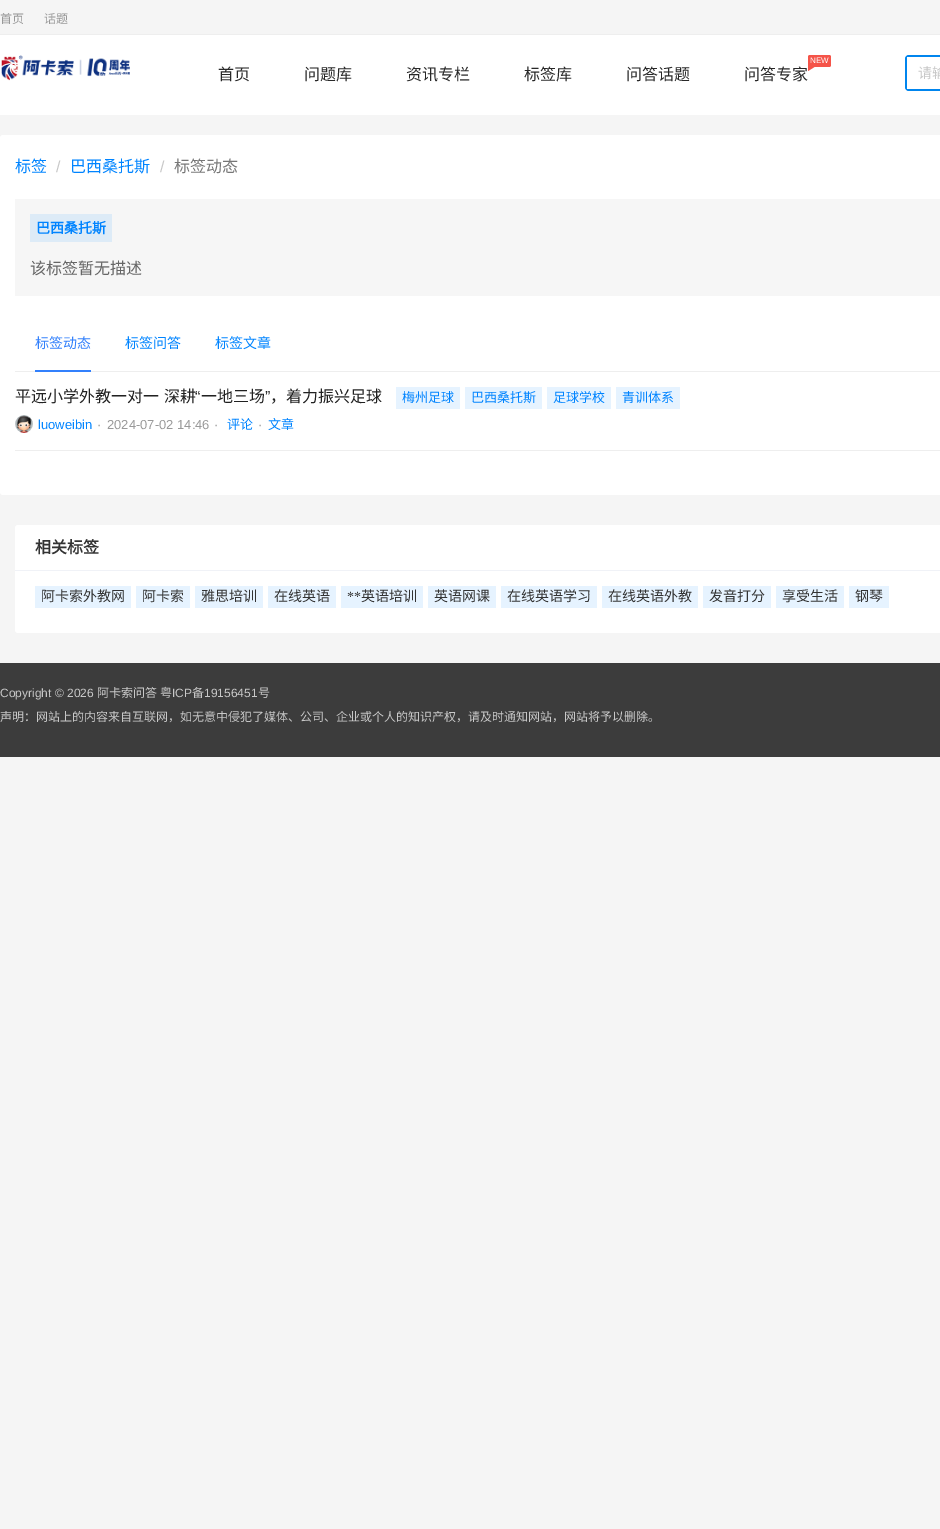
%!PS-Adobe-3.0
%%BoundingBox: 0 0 940 1529
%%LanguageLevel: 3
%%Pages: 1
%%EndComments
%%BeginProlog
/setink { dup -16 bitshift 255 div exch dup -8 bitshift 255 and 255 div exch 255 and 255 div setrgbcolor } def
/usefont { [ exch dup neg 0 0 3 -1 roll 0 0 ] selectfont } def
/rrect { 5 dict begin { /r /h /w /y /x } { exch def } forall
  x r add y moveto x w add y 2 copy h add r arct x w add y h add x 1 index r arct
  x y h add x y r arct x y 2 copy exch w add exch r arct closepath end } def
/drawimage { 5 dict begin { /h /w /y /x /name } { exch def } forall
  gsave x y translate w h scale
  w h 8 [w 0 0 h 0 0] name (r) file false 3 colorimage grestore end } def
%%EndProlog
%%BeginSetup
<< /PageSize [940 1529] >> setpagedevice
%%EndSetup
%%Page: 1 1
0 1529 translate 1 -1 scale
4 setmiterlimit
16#F5F5F5 setink
0 0 940 1529 rectfill
16#EEEEEE setink
0 34 940 1 rectfill
/NotoSansCJKSC-Regular 12 usefont
16#999999 setink
0 23 moveto (首页) show
44 23 moveto (话题) show
16#FFFFFF setink
0 35 940 80 rectfill
(img1.raw) 1 55 129 26 drawimage
/NotoSansCJKSC-Regular 16 usefont
16#282828 setink
[
    [(首页) 218 80]
    [(问题库) 304 80]
    [(资讯专栏) 406 80]
    [(标签库) 524 80]
    [(问答话题) 626 80]
] { aload pop moveto show } forall
16#F55449 setink
808 55 23 12 2 rrect fill
/LiberationSans-Regular 8 usefont
16#FFFFFF setink
810 63 moveto (NEW) show
16#F55449 setink
808 66 moveto 816 66 lineto 808 71 lineto closepath fill
/NotoSansCJKSC-Regular 16 usefont
16#282828 setink
744 80 moveto (问答专家) show
16#0085EE setink
905 55 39 36 4 rrect fill
16#FFFFFF setink
907 57 33 32 rectfill
/NotoSansCJKSC-Regular 14 usefont
16#C8C8C8 setink
918 78 moveto (请输) show
16#FFFFFF setink
0 135 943 360 3 rrect fill
/NotoSansCJKSC-Regular 16 usefont
16#0084FF setink
15 172 moveto (标签) show
/LiberationSans-Regular 16 usefont
16#C8C8C8 setink
56 172 moveto (/) show
/NotoSansCJKSC-Regular 16 usefont
16#0084FF setink
70 172 moveto (巴西桑托斯) show
/LiberationSans-Regular 16 usefont
16#C8C8C8 setink
160 172 moveto (/) show
/NotoSansCJKSC-Regular 16 usefont
16#777777 setink
174 172 moveto (标签动态) show
16#F6F6F6 setink
15 199 925 97 rectfill
16#DDEBF7 setink
30 214 82 28 rectfill
/NotoSansCJKSC-Bold 14 usefont
16#0084FF setink
36 233 moveto (巴西桑托斯) show
/NotoSansCJKSC-Regular 16 usefont
16#666666 setink
30 274 moveto (该标签暂无描述) show
16#EEEEEE setink
15 371 925 1 rectfill
16#3280FC setink
35 370 56 2 rectfill
/NotoSansCJKSC-Regular 14 usefont
35 348 moveto (标签动态) show
16#0084FF setink
125 348 moveto (标签问答) show
215 348 moveto (标签文章) show
16#EEEEEE setink
15 450 925 1 rectfill
/NotoSansCJKSC-Regular 16 usefont
16#212121 setink
15 402 moveto 1 0 32 (平远小学外教一对一 深耕) widthshow
/LiberationSans-Regular 16 usefont
195 402 moveto (“) show
/NotoSansCJKSC-Regular 16 usefont
201 402 moveto (一地三场) show
/LiberationSans-Regular 16 usefont
265 402 moveto (”) show
/NotoSansCJKSC-Regular 16 usefont
270 402 moveto (，着力振兴足球) show
16#E6F3FF setink
396 387 64 22 rectfill
/NotoSansCJKSC-Regular 13 usefont
16#0084FF setink
402 402 moveto (梅州足球) show
16#E6F3FF setink
465 387 77 22 rectfill
16#0084FF setink
471 402 moveto (巴西桑托斯) show
16#E6F3FF setink
547 387 64 22 rectfill
16#0084FF setink
553 402 moveto (足球学校) show
16#E6F3FF setink
616 387 64 22 rectfill
16#0084FF setink
622 402 moveto (青训体系) show
(img2.raw) 15 415 18 18 drawimage
/LiberationSans-Regular 13 usefont
38 429 moveto (luoweibin) show
16#999999 setink
[
    [(·) 97 429]
    [(2024-07-02 14:46) 107 429]
    [(·) 214 429]
] { aload pop moveto show } forall
/NotoSansCJKSC-Regular 13 usefont
16#0084FF setink
227 429 moveto (评论) show
/LiberationSans-Regular 13 usefont
16#999999 setink
258 429 moveto (·) show
/NotoSansCJKSC-Regular 13 usefont
16#0084FF setink
268 429 moveto (文章) show
16#FFFFFF setink
15 525 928 108 3 rrect fill
16#F0F2F7 setink
15 570 925 1 rectfill
/NotoSansCJKSC-Bold 16 usefont
16#333333 setink
35 553 moveto (相关标签) show
16#E6F3FF setink
35 586 96 22 rectfill
/NotoSansCJKSC-Regular 14 usefont
16#333333 setink
41 601 moveto (阿卡索外教网) show
16#E6F3FF setink
136 586 54 22 rectfill
16#333333 setink
142 601 moveto (阿卡索) show
16#E6F3FF setink
195 586 68 22 rectfill
16#333333 setink
201 601 moveto (雅思培训) show
16#E6F3FF setink
268 586 68 22 rectfill
16#333333 setink
274 601 moveto (在线英语) show
16#E6F3FF setink
341 586 82 22 rectfill
/LiberationSerif-Regular 14 usefont
16#333333 setink
347 601 moveto (**) show
/NotoSansCJKSC-Regular 14 usefont
361 601 moveto (英语培训) show
16#E6F3FF setink
428 586 68 22 rectfill
16#333333 setink
434 601 moveto (英语网课) show
16#E6F3FF setink
501 586 96 22 rectfill
16#333333 setink
507 601 moveto (在线英语学习) show
16#E6F3FF setink
602 586 96 22 rectfill
16#333333 setink
608 601 moveto (在线英语外教) show
16#E6F3FF setink
703 586 68 22 rectfill
16#333333 setink
709 601 moveto (发音打分) show
16#E6F3FF setink
776 586 68 22 rectfill
16#333333 setink
782 601 moveto (享受生活) show
16#E6F3FF setink
849 586 40 22 rectfill
16#333333 setink
855 601 moveto (钢琴) show
16#3C3C3C setink
0 663 940 94 rectfill
/LiberationSans-Regular 12 usefont
16#C8C8C8 setink
0 697 moveto (Copyright © 2026) show
/NotoSansCJKSC-Regular 12 usefont
97 697 moveto (阿卡索问答) show
160 697 moveto (粤) show
/LiberationSans-Regular 12 usefont
172 697 moveto (ICP) show
/NotoSansCJKSC-Regular 12 usefont
192 697 moveto (备) show
/LiberationSans-Regular 12 usefont
204 697 moveto (19156451) show
/NotoSansCJKSC-Regular 12 usefont
258 697 moveto (号) show
0 721 moveto (声明：网站上的内容来自互联网，如无意中侵犯了媒体、公司、企业或个人的知识产权，请及时通知网站，网站将予以删除。) show
showpage
%%EOF
